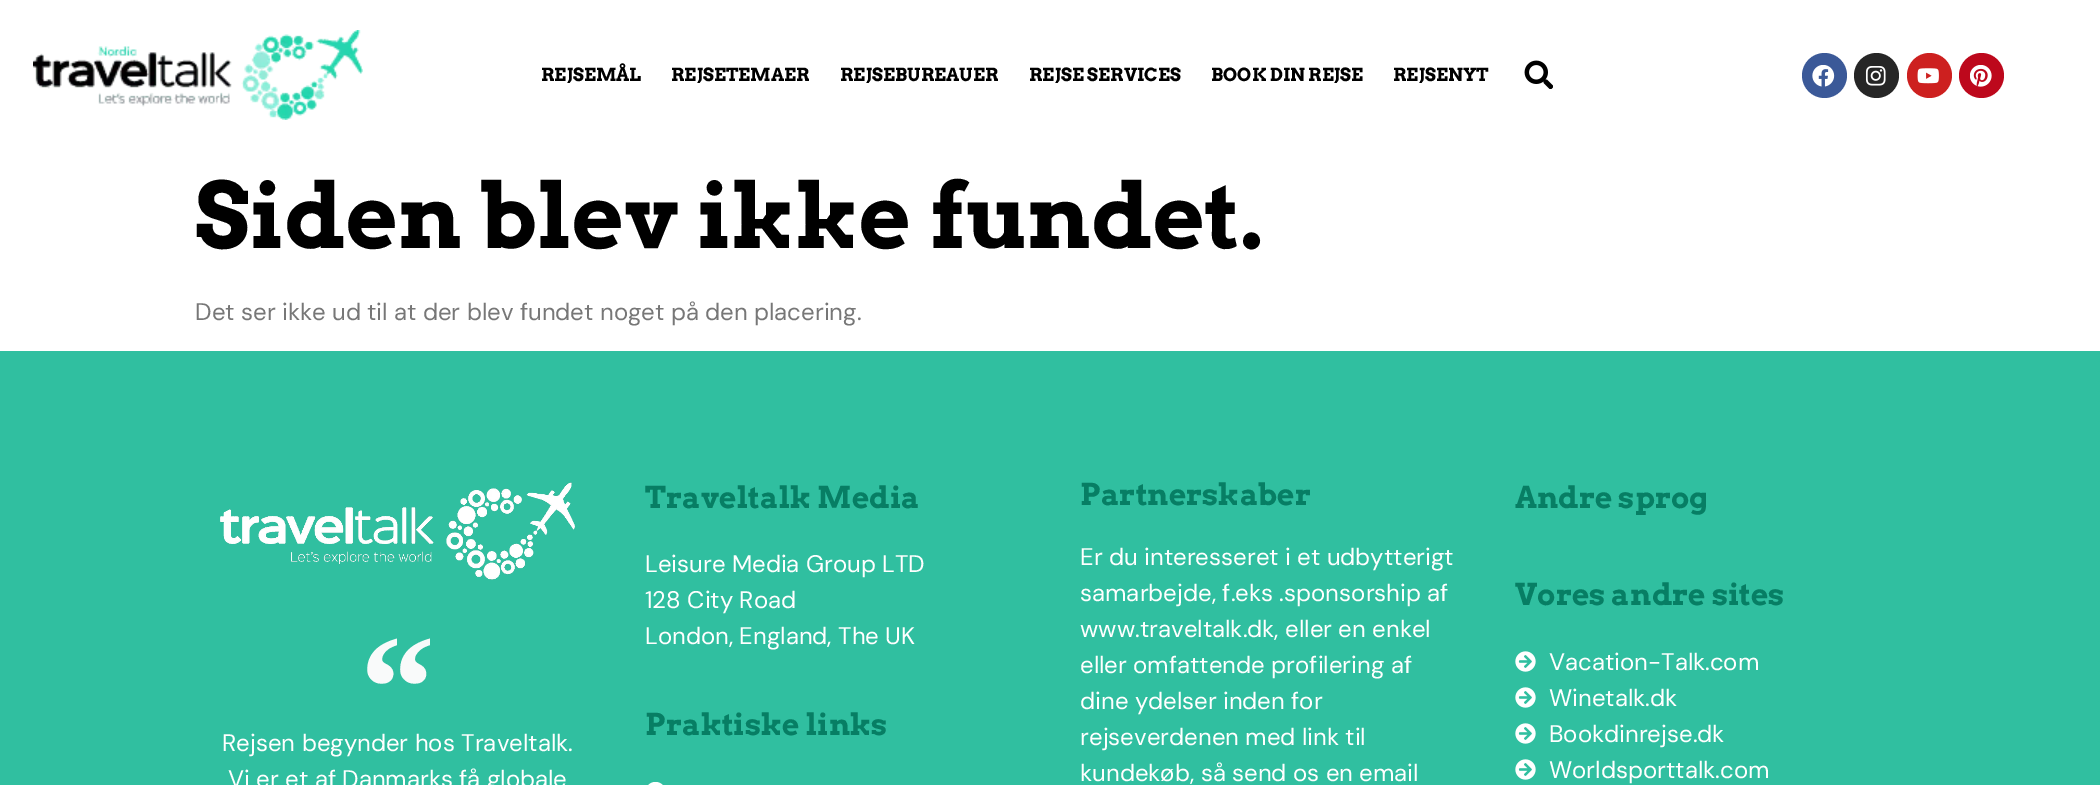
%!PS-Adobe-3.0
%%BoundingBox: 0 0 2100 785
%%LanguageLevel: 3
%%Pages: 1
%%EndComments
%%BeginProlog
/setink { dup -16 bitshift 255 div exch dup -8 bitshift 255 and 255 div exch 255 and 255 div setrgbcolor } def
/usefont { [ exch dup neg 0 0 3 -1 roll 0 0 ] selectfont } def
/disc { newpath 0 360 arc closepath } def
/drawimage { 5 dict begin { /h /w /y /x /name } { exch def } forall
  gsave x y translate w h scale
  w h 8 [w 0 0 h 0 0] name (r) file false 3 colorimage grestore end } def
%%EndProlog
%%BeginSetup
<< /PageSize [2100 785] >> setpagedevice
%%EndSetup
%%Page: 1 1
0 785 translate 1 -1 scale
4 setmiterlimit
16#FFFFFF setink
0 0 2100 785 rectfill
(img1.raw) 33 30 330 90 drawimage
/Arvo-Bold 18 usefont
16#000000 setink
[
    [(REJSEMÅL) 541 81]
    [(REJSETEMAER) 671 81]
    [(REJSEBUREAUER) 840 81]
    [(REJSE SERVICES) 1029 81]
    [(BOOK DIN REJSE) 1211 81]
    [(REJSENYT) 1393 81]
] { aload pop moveto show } forall
(img2.raw) 1524 60 29 29 drawimage
16#3B5998 setink
1824.5 75.5 22.5 disc fill
(img3.raw) 1812 65 23 22 drawimage
16#262626 setink
1876.5 75.5 22.5 disc fill
(img4.raw) 1865 66 21 20 drawimage
16#CD201F setink
1929.5 75.5 22.5 disc fill
(img5.raw) 1917 68 22 16 drawimage
16#BD081C setink
1981.5 75.5 22.5 disc fill
(img6.raw) 1970 65 22 22 drawimage
/Arvo-Bold 90 usefont
16#000000 setink
195 248 moveto (Siden blev ikke fundet.) show
/DMSans-Regular 24 usefont
16#777777 setink
195 320 moveto (Det ser ikke ud til at der blev fundet noget på den placering.) show
16#30BFA0 setink
0 351 2100 434 rectfill
(img7.raw) 220 482 355 98 drawimage
/LiberationSerif-Bold 150 usefont
16#F9FAFA setink
360 738 moveto (“) show
/DMSans-Regular 24 usefont
16#FFFFFF setink
222 751 moveto (Rejsen begynder hos Traveltalk.) show
228 787 moveto (Vi er et af Danmarks få globale) show
/Arvo-Bold 30 usefont
16#077E64 setink
645 508 moveto (Traveltalk Media) show
/DMSans-Regular 24 usefont
16#FFFFFF setink
[
    [(Leisure Media Group LTD) 645 572]
    [(128 City Road) 645 608]
    [(London, England, The UK) 645 644]
] { aload pop moveto show } forall
/Arvo-Bold 30 usefont
16#077E64 setink
645 735 moveto (Praktiske links) show
(img8.raw) 648 782 15 3 drawimage
1080 505 moveto (Partnerskaber) show
/DMSans-Regular 24 usefont
16#FFFFFF setink
[
    [(Er du interesseret i et udbytterigt) 1080 565]
    [(samarbejde, f.eks .sponsorship af) 1080 601]
    [(www.traveltalk.dk, eller en enkel) 1080 637]
    [(eller omfattende profilering af) 1080 673]
    [(dine ydelser inden for) 1080 709]
    [(rejseverdenen med link til) 1080 745]
    [(kundekøb, så send os en email) 1080 781]
] { aload pop moveto show } forall
/Arvo-Bold 30 usefont
16#077E64 setink
1515 508 moveto (Andre sprog) show
1515 605 moveto (Vores andre sites) show
(img9.raw) 1515 651 21 21 drawimage
/DMSans-Regular 24 usefont
16#FFFFFF setink
1549 670 moveto (Vacation-Talk.com) show
(img9.raw) 1515 687 21 21 drawimage
1549 706 moveto (Winetalk.dk) show
(img9.raw) 1515 723 21 21 drawimage
1549 742 moveto (Bookdinrejse.dk) show
(img9.raw) 1515 759 21 21 drawimage
1549 778 moveto (Worldsporttalk.com) show
showpage
%%EOF
